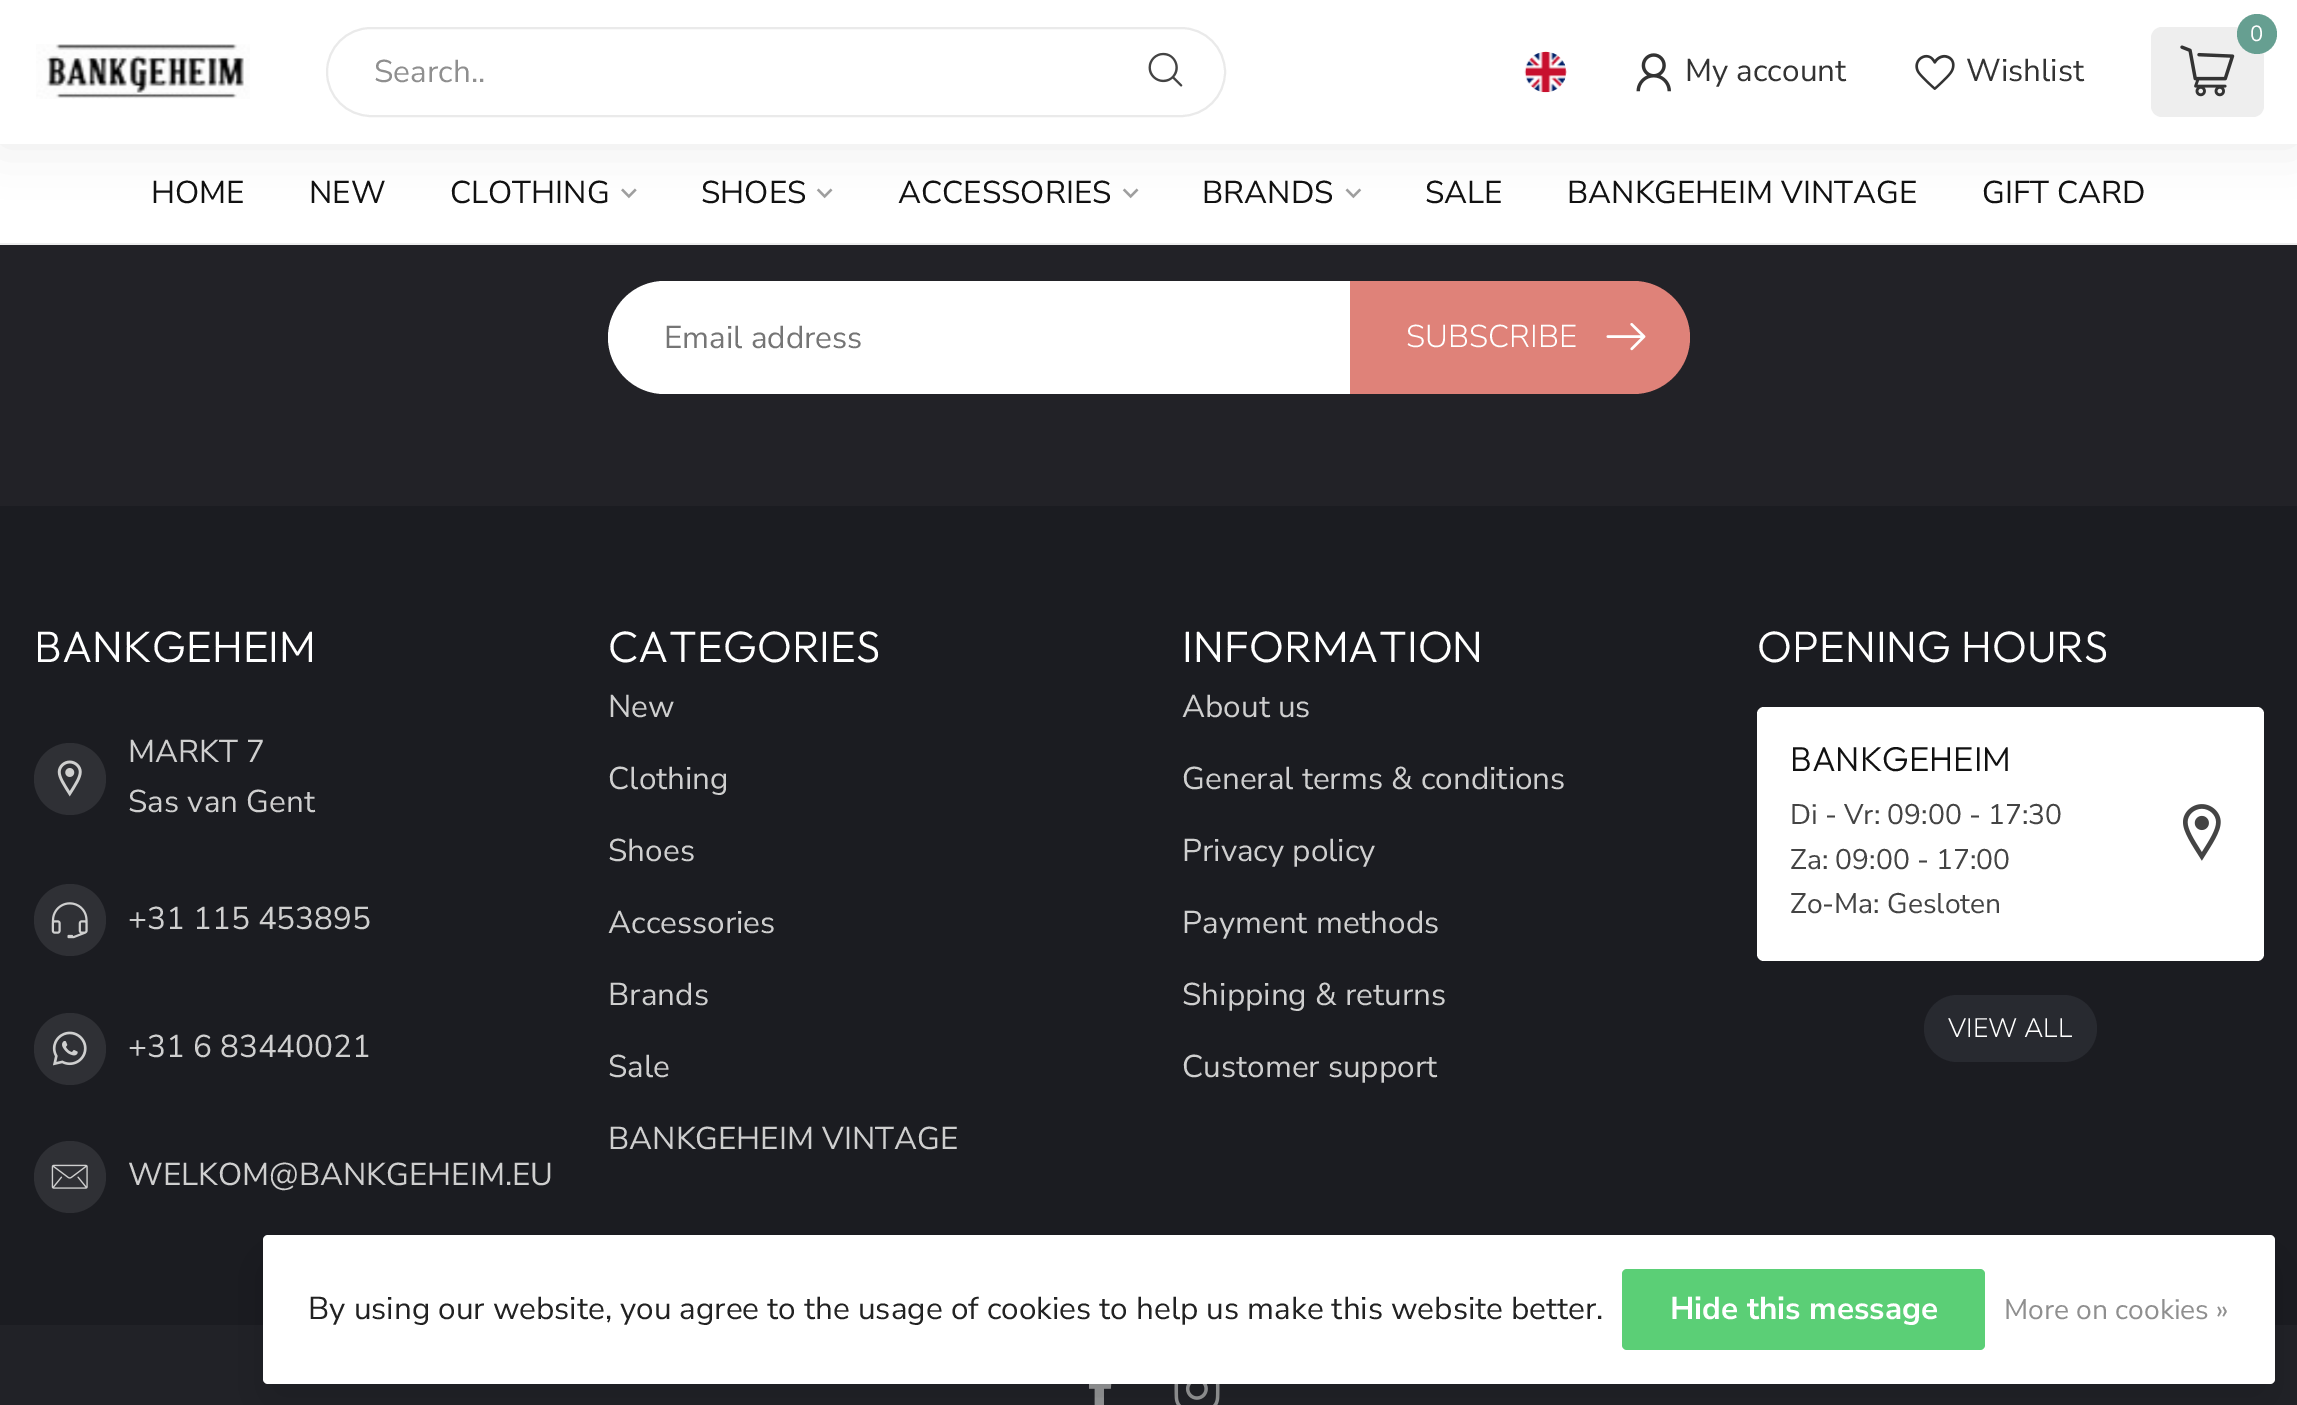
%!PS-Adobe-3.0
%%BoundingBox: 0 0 2297 1405
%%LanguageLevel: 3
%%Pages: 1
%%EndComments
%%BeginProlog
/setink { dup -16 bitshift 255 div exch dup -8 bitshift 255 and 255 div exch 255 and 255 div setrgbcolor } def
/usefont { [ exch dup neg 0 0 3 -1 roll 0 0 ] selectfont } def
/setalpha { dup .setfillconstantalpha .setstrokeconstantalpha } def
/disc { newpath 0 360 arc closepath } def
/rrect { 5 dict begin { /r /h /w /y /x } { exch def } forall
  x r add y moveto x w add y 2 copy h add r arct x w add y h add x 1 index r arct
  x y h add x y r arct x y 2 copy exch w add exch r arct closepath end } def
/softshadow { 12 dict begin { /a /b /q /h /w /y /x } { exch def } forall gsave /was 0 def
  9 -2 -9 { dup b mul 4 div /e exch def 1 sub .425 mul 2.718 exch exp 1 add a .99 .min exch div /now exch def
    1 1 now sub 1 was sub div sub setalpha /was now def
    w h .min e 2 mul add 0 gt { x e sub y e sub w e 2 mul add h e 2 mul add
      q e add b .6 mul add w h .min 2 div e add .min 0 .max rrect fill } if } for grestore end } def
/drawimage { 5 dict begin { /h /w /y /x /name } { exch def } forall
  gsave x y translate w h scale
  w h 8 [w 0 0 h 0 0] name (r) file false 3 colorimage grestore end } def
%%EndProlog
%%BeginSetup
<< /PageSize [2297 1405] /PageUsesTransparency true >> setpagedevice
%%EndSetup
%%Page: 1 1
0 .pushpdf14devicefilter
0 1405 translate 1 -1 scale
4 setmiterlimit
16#1B1C21 setink
0 0 2297 1405 rectfill
16#FFFFFF setink
0 144 2297 99 rectfill
(img7.raw) 621 188 16 11 drawimage
(img8.raw) 816 188 17 11 drawimage
(img8.raw) 1122 188 17 11 drawimage
(img9.raw) 1345 188 17 11 drawimage
16#000000 setink
0 -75 2297 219 0 25 0.08 softshadow
16#FFFFFF setink
0 0 2297 144 rectfill
(img1.raw) 36 44 214 55 drawimage
16#EAEAEA setink
2 setlinewidth
327 28 898 88 44 rrect stroke
/NunitoSans-Regular 31.5 usefont
16#8F8F8F setink
374 82 moveto (Search..) show
(img2.raw) 1148 52 35 35 drawimage
16#EEEEEE setink
2151 27 113 90 11 rrect fill
16#669F91 setink
2257 34 20 disc fill
/NunitoSans-Regular 22 usefont
16#FFFFFF setink
2250 41 moveto (0) show
(img3.raw) 2180 45 55 52 drawimage
(img4.raw) 1524 51 43 42 drawimage
(img5.raw) 1636 53 35 39 drawimage
/NunitoSans-Regular 31.5 usefont
16#333333 setink
1685 81 moveto (My account) show
(img6.raw) 1915 54 40 36 drawimage
1966 81 moveto (Wishlist) show
16#EEEEEE setink
0 243 2297 2 rectfill
16#111111 setink
[
    [(HOME) 151 203]
    [(NEW) 309 203]
    [(CLOTHING) 450 203]
    [(SHOES) 701 203]
    [(ACCESSORIES) 898 203]
    [(BRANDS) 1202 203]
    [(SALE) 1425 203]
    [(BANKGEHEIM VINTAGE) 1567 203]
    [(GIFT CARD) 1982 203]
] { aload pop moveto show } forall
16#222227 setink
0 245 2297 261 rectfill
16#FFFFFF setink
664.5 281 moveto 1350 281 lineto 1350 394 lineto 664.5 394 lineto 633.5 394 608 368.5 608 337.5 curveto 608 306.5 633.5 281 664.5 281 curveto closepath fill
16#757575 setink
664 348 moveto (Email address) show
16#DF8279 setink
1350 281 moveto 1633.5 281 lineto 1664.5 281 1690 306.5 1690 337.5 curveto 1690 368.5 1664.5 394 1633.5 394 curveto 1350 394 lineto closepath fill
/NunitoSans-Light 31.5 usefont
16#FFFFFF setink
1406 347 moveto (SUBSCRIBE) show
(img10.raw) 1606 323 40 28 drawimage
/Outfit-Light 44 usefont
34 662 moveto (BANKGEHEIM) show
16#2F3035 setink
70 779 36 disc fill
(img11.raw) 57 760 25 37 drawimage
/NunitoSans-Regular 31.5 usefont
16#CFCFCF setink
128 762 moveto (MARKT 7) show
128 812 moveto (Sas van Gent) show
16#2F3035 setink
70 920 36 disc fill
(img12.raw) 51 902 37 37 drawimage
16#CFCFCF setink
128 929 moveto (+31 115 453895) show
16#2F3035 setink
70 1049 36 disc fill
(img13.raw) 52 1031 35 35 drawimage
16#CFCFCF setink
128 1057 moveto (+31 6 83440021) show
16#2F3035 setink
70 1177 36 disc fill
(img14.raw) 51 1164 37 25 drawimage
16#CFCFCF setink
128 1185 moveto (WELKOM@BANKGEHEIM.EU) show
/Outfit-Light 44 usefont
16#FFFFFF setink
608 662 moveto (CATEGORIES) show
/NunitoSans-Regular 31.5 usefont
16#CFCFCF setink
[
    [(New) 608 717]
    [(Clothing) 608 789]
    [(Shoes) 608 861]
    [(Accessories) 608 933]
    [(Brands) 608 1005]
    [(Sale) 608 1077]
    [(BANKGEHEIM VINTAGE) 608 1149]
] { aload pop moveto show } forall
/Outfit-Light 44 usefont
16#FFFFFF setink
1182 662 moveto (INFORMATION) show
/NunitoSans-Regular 31.5 usefont
16#CFCFCF setink
[
    [(About us) 1182 717]
    [(General terms & conditions) 1182 789]
    [(Privacy policy) 1182 861]
    [(Payment methods) 1182 933]
    [(Shipping & returns) 1182 1005]
    [(Customer support) 1182 1077]
] { aload pop moveto show } forall
/Outfit-Light 44 usefont
16#FFFFFF setink
1757 662 moveto (OPENING HOURS) show
1757 707 507 254 7 rrect fill
/Outfit-Light 34.5 usefont
16#111111 setink
1790 771 moveto (BANKGEHEIM) show
/NunitoSans-Regular 28.25 usefont
16#444444 setink
[
    [(Di - Vr: 09:00 - 17:30) 1790 824]
    [(Za: 09:00 - 17:00) 1790 869]
    [(Zo-Ma: Gesloten) 1790 913]
] { aload pop moveto show } forall
(img15.raw) 2183 804 38 57 drawimage
16#282A30 setink
1924 995 173 67 33.5 rrect fill
/NunitoSans-Light 26.75 usefont
16#FFFFFF setink
1948 1037 moveto (VIEW ALL) show
16#212227 setink
0 1325 2297 80 rectfill
(img16.raw) 1089 1384 23 21 drawimage
(img17.raw) 1174 1384 46 21 drawimage
16#000000 setink
263 1258 2012 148 5 34 0.15 softshadow
16#FFFFFF setink
263 1235 2012 149 5 rrect fill
/NunitoSans-Regular 31.5 usefont
16#222222 setink
308 1319 moveto (By using our website, you agree to the usage of cookies to help us make this website better.) show
16#5BCF76 setink
1622 1269 363 81 5 rrect fill
/NunitoSans-Bold 31.5 usefont
16#FFFFFF setink
1670 1319 moveto (Hide this message) show
/NunitoSans-Regular 28.25 usefont
16#8F8F8F setink
2004 1319 moveto (More on cookies ») show
.poppdf14devicefilter showpage
%%EOF
